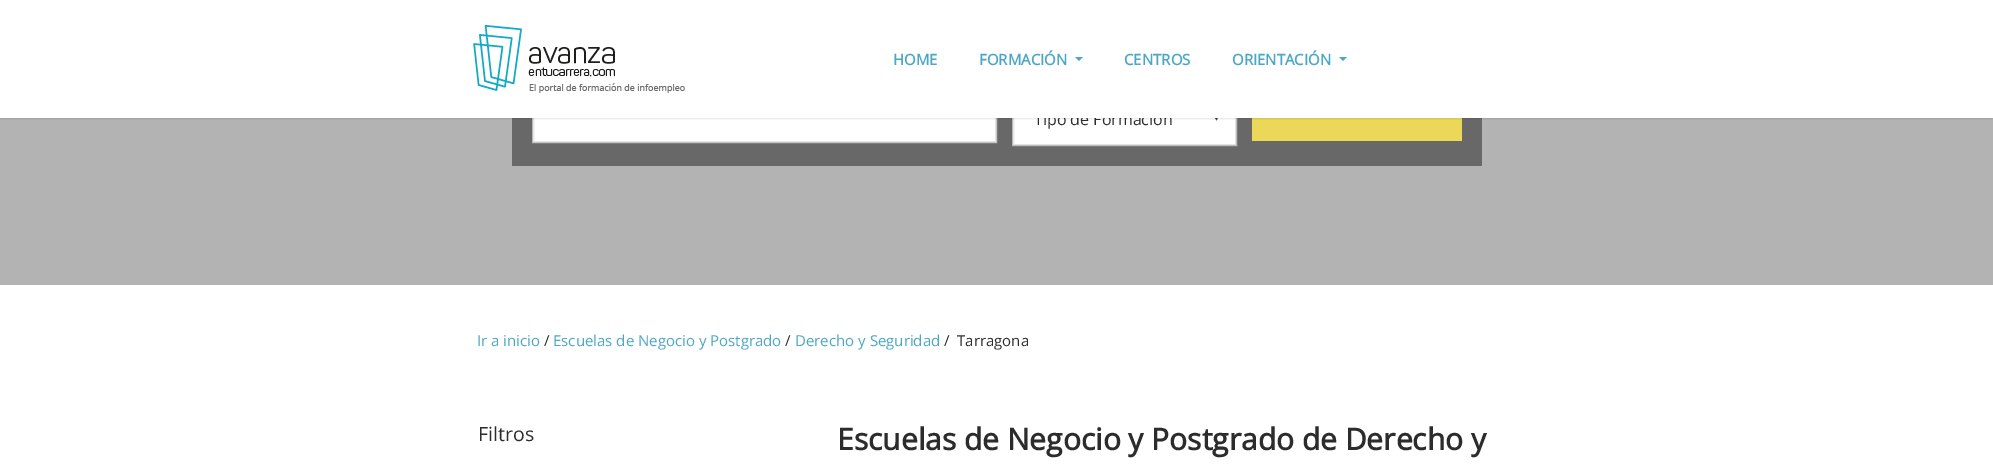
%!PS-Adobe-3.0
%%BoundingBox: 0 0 1993 464
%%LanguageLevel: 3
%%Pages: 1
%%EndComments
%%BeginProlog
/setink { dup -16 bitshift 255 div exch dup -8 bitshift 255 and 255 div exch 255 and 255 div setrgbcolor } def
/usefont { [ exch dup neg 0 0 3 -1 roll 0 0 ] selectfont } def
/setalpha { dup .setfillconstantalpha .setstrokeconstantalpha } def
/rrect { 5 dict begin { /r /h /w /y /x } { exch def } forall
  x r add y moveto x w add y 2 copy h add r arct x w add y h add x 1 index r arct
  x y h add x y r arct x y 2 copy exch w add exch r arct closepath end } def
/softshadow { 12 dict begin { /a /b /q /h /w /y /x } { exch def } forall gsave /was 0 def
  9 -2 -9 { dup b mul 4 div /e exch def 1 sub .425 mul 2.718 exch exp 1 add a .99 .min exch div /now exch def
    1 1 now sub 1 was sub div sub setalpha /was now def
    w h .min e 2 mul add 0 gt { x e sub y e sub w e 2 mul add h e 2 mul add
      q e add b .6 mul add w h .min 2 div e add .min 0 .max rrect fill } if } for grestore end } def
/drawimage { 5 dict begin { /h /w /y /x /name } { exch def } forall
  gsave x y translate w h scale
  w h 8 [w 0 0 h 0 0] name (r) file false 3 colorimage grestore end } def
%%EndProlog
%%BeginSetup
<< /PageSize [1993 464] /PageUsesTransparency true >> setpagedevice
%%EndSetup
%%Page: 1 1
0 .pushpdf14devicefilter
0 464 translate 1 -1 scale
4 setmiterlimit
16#FFFFFF setink
0 0 1993 464 rectfill
16#B3B3B3 setink
0 118 1993 167 rectfill
16#686868 setink
512 118 970 48 rectfill
gsave
0 118 1993 167 rectclip
16#BBBBBB setink
532.5 89.5 464 53 rectstroke
grestore
16#FFFFFF setink
534 118 461 23 rectfill
gsave
0 118 1993 167 rectclip
16#E3E3E3 setink
533.5 90.5 462 51 rectstroke
grestore
1014 118 221 26 rectfill
gsave
1212 118 11 6 rectclip
16#444444 setink
1216.5 120.5 moveto 1212 113 lineto 1220.5 113 lineto closepath fill
grestore
gsave
0 118 1993 167 rectclip
16#BBBBBB setink
1012.5 89.5 224 56 rectstroke
grestore
gsave
1013 118 223 27 rectclip
16#E3E3E3 setink
1013.5 90.5 222 54 rectstroke
grestore
16#EBD858 setink
1252 118 210 23 rectfill
gsave
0 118 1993 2 rectclip
16#000000 setink
0 1 1993 118 0 1 0.11 softshadow
grestore
(img1.raw) 473 25 212 68 drawimage
/OpenSans-Bold 15 usefont
16#4BA7C4 setink
893 65 moveto (HOME) show
979 65 moveto (FORMACIÓN) show
1075 57 moveto 1083 57 lineto 1079 61 lineto closepath fill
1124 65 moveto (CENTROS) show
1232 65 moveto (ORIENTACIÓN) show
1339 57 moveto 1347 57 lineto 1343 61 lineto closepath fill
gsave
1034 118 161 11 rectclip
/OpenSans-Regular 16 usefont
16#2C2C2C setink
1034 125 moveto (Tipo de Formación) show
grestore
/OpenSans-Regular 15 usefont
477 346 moveto (Ir a inicio) show
16#2C2C2C setink
544 346 moveto (/) show
16#4BA7C4 setink
553 346 moveto (Escuelas de Negocio y Postgrado) show
16#2C2C2C setink
785 346 moveto (/) show
16#4BA7C4 setink
795 346 moveto (Derecho y Seguridad) show
16#2C2C2C setink
944 346 moveto (/) show
957 346 moveto (Tarragona) show
/OpenSans-Regular 19.5 usefont
478 441 moveto (Filtros) show
/OpenSans-Bold 30 usefont
837 450 moveto (Escuelas de Negocio y Postgrado de Derecho y) show
.poppdf14devicefilter showpage
%%EOF
